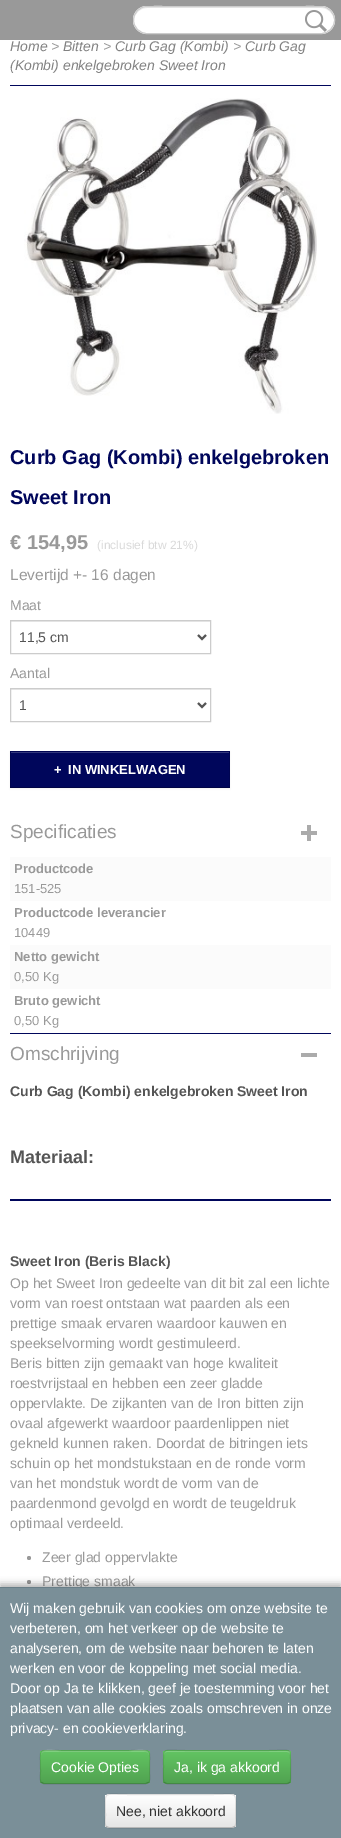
%!PS-Adobe-3.0
%%BoundingBox: 0 0 341 1838
%%LanguageLevel: 3
%%Pages: 1
%%EndComments
%%BeginProlog
/setink { dup -16 bitshift 255 div exch dup -8 bitshift 255 and 255 div exch 255 and 255 div setrgbcolor } def
/usefont { [ exch dup neg 0 0 3 -1 roll 0 0 ] selectfont } def
/setalpha { dup .setfillconstantalpha .setstrokeconstantalpha } def
/disc { newpath 0 360 arc closepath } def
/rrect { 5 dict begin { /r /h /w /y /x } { exch def } forall
  x r add y moveto x w add y 2 copy h add r arct x w add y h add x 1 index r arct
  x y h add x y r arct x y 2 copy exch w add exch r arct closepath end } def
/softshadow { 12 dict begin { /a /b /q /h /w /y /x } { exch def } forall gsave /was 0 def
  9 -2 -9 { dup b mul 4 div /e exch def 1 sub .425 mul 2.718 exch exp 1 add a .99 .min exch div /now exch def
    1 1 now sub 1 was sub div sub setalpha /was now def
    w h .min e 2 mul add 0 gt { x e sub y e sub w e 2 mul add h e 2 mul add
      q e add b .6 mul add w h .min 2 div e add .min 0 .max rrect fill } if } for grestore end } def
/drawimage { 5 dict begin { /h /w /y /x /name } { exch def } forall
  gsave x y translate w h scale
  w h 8 [w 0 0 h 0 0] name (r) file false 3 colorimage grestore end } def
%%EndProlog
%%BeginSetup
<< /PageSize [341 1838] /PageUsesTransparency true >> setpagedevice
%%EndSetup
%%Page: 1 1
0 .pushpdf14devicefilter
0 1838 translate 1 -1 scale
4 setmiterlimit
16#FFFFFF setink
0 0 341 1838 rectfill
16#999999 setink
0 0 341 40 rectfill
16#FFFFFF setink
133 6 202 28 14 rrect fill
16#ECECEC setink
147 8 moveto 321 8 lineto 328 8 334 14 334 21 curveto 335 0 300 7 292 7 curveto 176 7 lineto 168 7 133 0 134 21 curveto 134 14 140 8 147 8 curveto closepath fill
16#CCCCCC setink
133.5 6.5 201 27 13.5 rrect stroke
(img1.raw) 305 10 22 22 drawimage
16#00065B setink
10 85 321 1 rectfill
/LiberationSans-Italic 14 usefont
16#828282 setink
10 51 moveto (Home) show
16#999999 setink
51 51 moveto (>) show
16#828282 setink
63 51 moveto (Bitten) show
16#999999 setink
103 51 moveto (>) show
16#828282 setink
115 51 moveto (Curb Gag \(Kombi\)) show
16#999999 setink
233 51 moveto (>) show
16#828282 setink
245 51 moveto (Curb Gag) show
10 70 moveto (\(Kombi\) enkelgebroken Sweet Iron) show
(img2.raw) 24 98 293 316 drawimage
/LiberationSans-Bold 20 usefont
16#00065B setink
10 464 moveto (Curb Gag \(Kombi\) enkelgebroken) show
10 504 moveto (Sweet Iron) show
16#999999 setink
10 549 moveto (€ 154,95) show
/LiberationSans-Regular 12 usefont
16#D9D9D9 setink
97 549 moveto (\(inclusief btw 21%\)) show
/LiberationSans-Regular 15.5 usefont
16#999999 setink
10 580 moveto (Levertijd +- 16 dagen) show
/LiberationSans-Regular 14 usefont
10 610 moveto (Maat) show
16#ECECEC setink
11 621 199 1 rectfill
16#CCCCCC setink
10.5 620.5 200 33 rectstroke
16#555555 setink
2 setlinewidth
198 635 moveto 202 639 lineto 206 635 lineto stroke
19 642 moveto (11,5 cm) show
16#999999 setink
10 678 moveto (Aantal) show
16#ECECEC setink
11 689 199 1 rectfill
16#CCCCCC setink
1 setlinewidth
10.5 688.5 200 33 rectstroke
16#555555 setink
2 setlinewidth
198 703 moveto 202 707 lineto 206 703 lineto stroke
19 710 moveto (1) show
16#000000 setink
10 752 220 37 0 1 0.05 softshadow
16#00065B setink
10 751 220 37 rectfill
16#33387C setink
11 752 218 1 rectfill
16#000552 setink
10 751 moveto 230 751 lineto 229 752 lineto 11 752 lineto closepath fill
0.1 setalpha
16#000000 setink
230 751 moveto 230 788 lineto 229 787 lineto 229 752 lineto closepath fill
0.25 setalpha
230 788 moveto 10 788 lineto 11 787 lineto 229 787 lineto closepath fill
0.1 setalpha
10 788 moveto 10 751 lineto 11 752 lineto 11 787 lineto closepath fill
/LiberationSans-Bold 13 usefont
1 setalpha
16#FFFFFF setink
54 774 moveto (+) show
68 774 moveto (IN WINKELWAGEN) show
16#00065B setink
10 1033 321 1 rectfill
(img3.raw) 301 825 16 16 drawimage
/LiberationSans-Regular 19 usefont
16#999999 setink
10 838 moveto (Specificaties) show
16#FBFBFB setink
10 857 321 44 rectfill
/LiberationSans-Bold 13 usefont
16#999999 setink
14 873 moveto (Productcode) show
/LiberationSans-Regular 13 usefont
14 893 moveto (151-525) show
/LiberationSans-Bold 13 usefont
14 917 moveto (Productcode leverancier) show
/LiberationSans-Regular 13 usefont
14 937 moveto (10449) show
16#FBFBFB setink
10 945 321 44 rectfill
/LiberationSans-Bold 13 usefont
16#999999 setink
14 961 moveto (Netto gewicht) show
/LiberationSans-Regular 13 usefont
14 981 moveto (0,50 Kg) show
/LiberationSans-Bold 13 usefont
14 1005 moveto (Bruto gewicht) show
/LiberationSans-Regular 13 usefont
14 1025 moveto (0,50 Kg) show
16#ABABAB setink
301 1053 16 4 rectfill
/LiberationSans-Regular 19 usefont
16#999999 setink
10 1060 moveto (Omschrijving) show
/LiberationSans-Bold 14 usefont
16#555555 setink
10 1096 moveto (Curb Gag \(Kombi\) enkelgebroken Sweet Iron) show
/LiberationSans-Bold 18 usefont
10 1163 moveto (Materiaal:) show
16#00065B setink
10 1199 321 2 rectfill
/LiberationSans-Bold 14 usefont
16#555555 setink
10 1266 moveto (Sweet Iron \(Beris Black\)) show
/LiberationSans-Regular 14 usefont
16#999999 setink
[
    [(Op het Sweet Iron gedeelte van dit bit zal een lichte) 10 1288]
    [(vorm van roest ontstaan wat paarden als een) 10 1308]
    [(prettige smaak ervaren waardoor kauwen en) 10 1328]
    [(speekselvorming wordt gestimuleerd.) 10 1348]
    [(Beris bitten zijn gemaakt van hoge kwaliteit) 10 1368]
    [(roestvrijstaal en hebben een zeer gladde) 10 1388]
    [(oppervlakte. De zijkanten van de Iron bitten zijn) 10 1408]
    [(ovaal afgewerkt waardoor paardenlippen niet) 10 1428]
    [(gekneld kunnen raken. Doordat de bitringen iets) 10 1448]
    [(schuin op het mondstukstaan en de ronde vorm) 10 1468]
    [(van het mondstuk wordt de vorm van de) 10 1488]
    [(paardenmond gevolgd en wordt de teugeldruk) 10 1508]
    [(optimaal verdeeld.) 10 1528]
] { aload pop moveto show } forall
29 1558 2 disc fill
42 1562 moveto (Zeer glad oppervlakte) show
29 1582 2 disc fill
42 1586 moveto (Prettige smaak) show
16#000000 setink
0 1584 341 251 0 3.5 0.3 softshadow
16#7A8F98 setink
0 1588 341 250 rectfill
16#697E87 setink
0 1587 341 1 rectfill
16#FFFFFF setink
[
    [(Wij maken gebruik van cookies om onze website te) 10 1613]
    [(verbeteren, om het verkeer op de website te) 10 1633]
    [(analyseren, om de website naar behoren te laten) 10 1653]
    [(werken en voor de koppeling met social media.) 10 1673]
    [(Door op Ja te klikken, geef je toestemming voor het) 10 1693]
    [(plaatsen van alle cookies zoals omschreven in onze) 10 1713]
    [(privacy- en cookieverklaring.) 10 1733]
] { aload pop moveto show } forall
16#5BB75B setink
40 1750 110 34 4 rrect fill
gsave
40 1750 110 34 4 rrect clip newpath
gsave 40 1751 moveto 150 1751 lineto 150 1783 lineto 40 1783 lineto closepath clip newpath
<< /ShadingType 2 /ColorSpace /DeviceRGB /Coords [95 1751 95 1783] /Extend [true true] /Function << /FunctionType 2 /Domain [0 1] /C0 [0.384 0.769 0.384] /C1 [0.318 0.639 0.318] /N 1 >> >> shfill grestore
grestore
0.2 setalpha
16#FFFFFF setink
44 1752 moveto 146 1752 lineto 148 1752 149 1753 149 1755 curveto 149 1746 131 1751 129 1751 curveto 61 1751 lineto 59 1751 41 1746 41 1755 curveto 41 1753 42 1752 44 1752 curveto closepath fill
0.25 setalpha
16#000000 setink
1 setlinewidth
148.5 1782.5 moveto 146 1783.5 lineto 43.5 1783.5 lineto 41.5 1782.5 lineto stroke
0.1 setalpha
41.5 1782.5 moveto 39 1780 40.5 1774 40.5 1771.5 curveto 40.5 1747 36 1750.5 61 1750.5 curveto 129 1750.5 lineto 154 1750.5 149.5 1747 149.5 1771.5 curveto 149.5 1774 151 1780 148.5 1782.5 curveto stroke
1 setalpha
16#FFFFFF setink
51 1772 moveto (Cookie Opties) show
16#5BB75B setink
163 1750 128 34 4 rrect fill
gsave
163 1750 128 34 4 rrect clip newpath
gsave 163 1751 moveto 291 1751 lineto 291 1783 lineto 163 1783 lineto closepath clip newpath
<< /ShadingType 2 /ColorSpace /DeviceRGB /Coords [227 1751 227 1783] /Extend [true true] /Function << /FunctionType 2 /Domain [0 1] /C0 [0.384 0.769 0.384] /C1 [0.318 0.639 0.318] /N 1 >> >> shfill grestore
grestore
16#81CF81 setink
167 1752 moveto 287 1752 lineto 289 1752 290 1753 290 1755 curveto 290 1753 290 1751 288 1751 curveto 167 1751 lineto 165 1751 164 1753 164 1755 curveto 164 1753 165 1752 167 1752 curveto closepath fill
0.25 setalpha
16#000000 setink
289.5 1782.5 moveto 289 1783 288 1783.5 287 1783.5 curveto 167 1783.5 lineto 166 1783.5 165 1783 164.5 1782.5 curveto stroke
0.1 setalpha
164.5 1782.5 moveto 162.5 1780 163.5 1770 163.5 1767 curveto 163.5 1745.5 161.5 1750.5 187 1750.5 curveto 267 1750.5 lineto 292.5 1750.5 290.5 1745.5 290.5 1767 curveto 290.5 1770 291.5 1780 289.5 1782.5 curveto stroke
1 setalpha
16#FFFFFF setink
174 1772 moveto (Ja, ik ga akkoord) show
16#F5F5F5 setink
105 1794 131 34 4 rrect fill
gsave
105 1794 131 34 4 rrect clip newpath
gsave 105 1795 moveto 236 1795 lineto 236 1827 lineto 105 1827 lineto closepath clip newpath
<< /ShadingType 2 /ColorSpace /DeviceRGB /Coords [171 1795 171 1827] /Extend [true true] /Function << /FunctionType 2 /Domain [0 1] /C0 [1 1 1] /C1 [0.902 0.902 0.902] /N 1 >> >> shfill grestore
grestore
0.25 setalpha
16#000000 setink
234.5 1826.5 moveto 234 1827 233 1827.5 232 1827.5 curveto 109 1827.5 lineto 108 1827.5 107 1827 106.5 1826.5 curveto stroke
0.1 setalpha
106.5 1826.5 moveto 104 1824 105.5 1818 105.5 1815.5 curveto 105.5 1789.5 101 1794.5 129.5 1794.5 curveto 211.5 1794.5 lineto 240 1794.5 235.5 1789.5 235.5 1815.5 curveto 235.5 1818 237 1824 234.5 1826.5 curveto stroke
1 setalpha
16#333333 setink
116 1816 moveto (Nee, niet akkoord) show
.poppdf14devicefilter showpage
%%EOF
